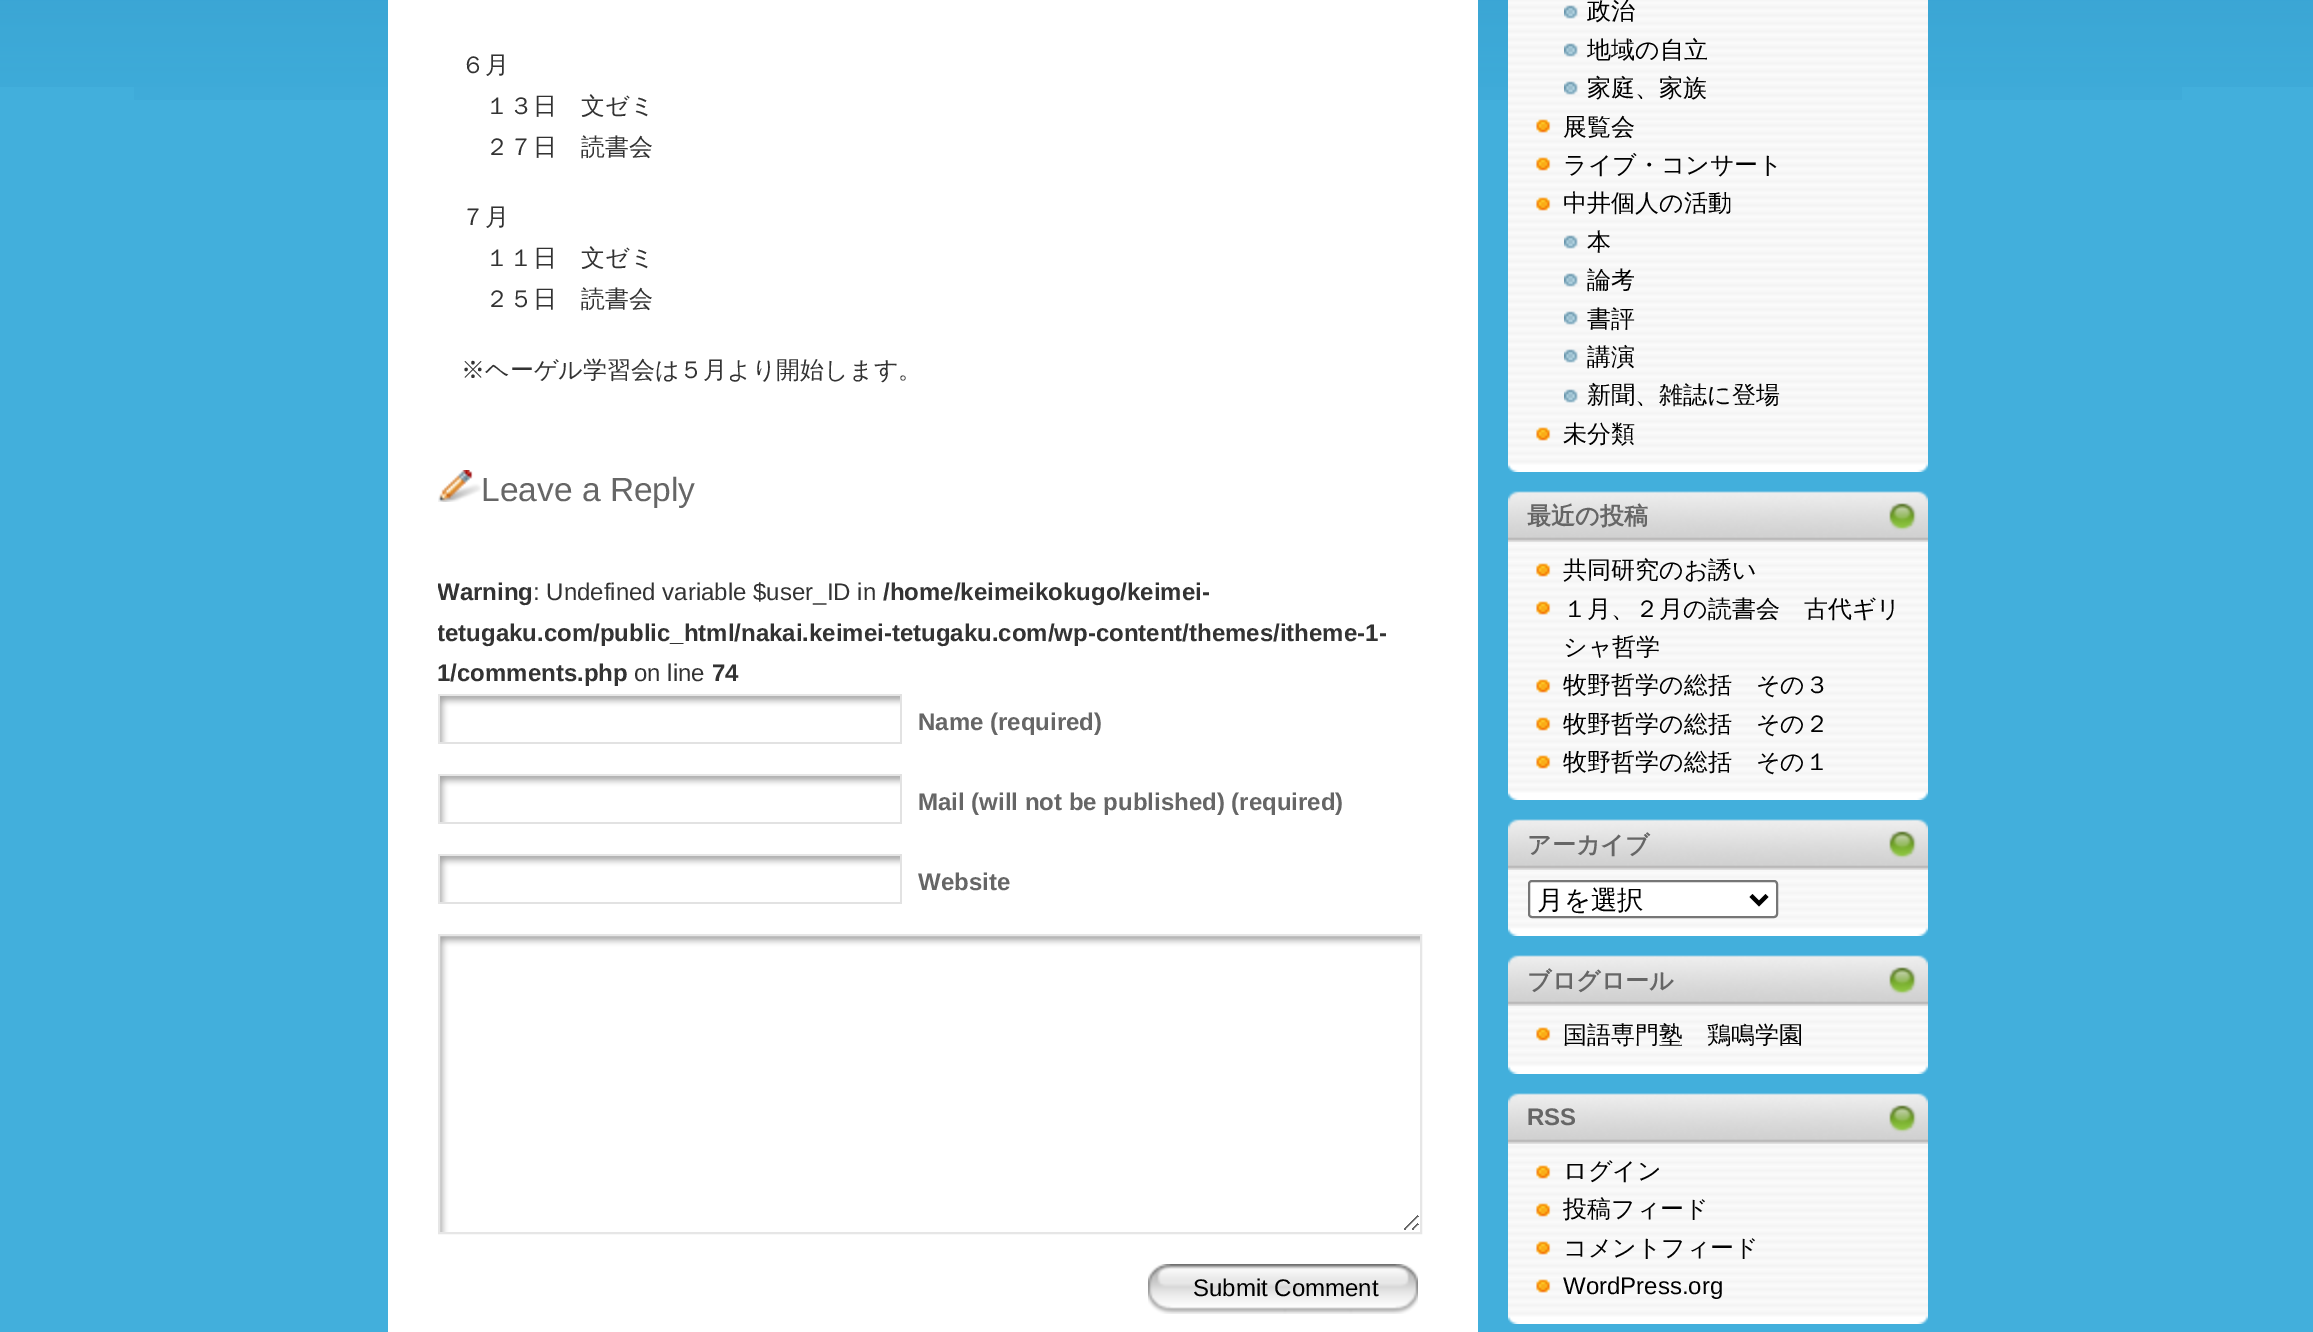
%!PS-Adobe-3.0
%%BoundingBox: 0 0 2313 1332
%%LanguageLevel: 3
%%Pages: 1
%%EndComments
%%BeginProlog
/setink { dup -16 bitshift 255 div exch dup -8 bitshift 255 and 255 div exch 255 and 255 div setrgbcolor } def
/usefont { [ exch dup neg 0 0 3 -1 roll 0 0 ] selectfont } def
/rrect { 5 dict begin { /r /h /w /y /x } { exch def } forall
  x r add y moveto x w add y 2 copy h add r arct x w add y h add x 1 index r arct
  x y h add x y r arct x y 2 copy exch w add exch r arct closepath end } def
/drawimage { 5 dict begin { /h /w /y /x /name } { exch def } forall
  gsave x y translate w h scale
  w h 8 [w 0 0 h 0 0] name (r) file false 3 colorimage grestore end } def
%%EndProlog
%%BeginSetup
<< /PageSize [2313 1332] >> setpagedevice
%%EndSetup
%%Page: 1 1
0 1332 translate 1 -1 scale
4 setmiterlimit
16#42AFDC setink
0 0 2313 1332 rectfill
(img1.raw) 0 0 2313 87 drawimage
16#3FABD9 setink
134 87 2048 13 rectfill
16#FFFFFF setink
388 0 1090 1332 rectfill
/WenQuanYiZenHei-Medium 24 usefont
16#333333 setink
[
    [(６月) 461 73]
    [(１３日　文ゼミ) 485 114]
    [(２７日　読書会) 485 155]
    [(７月) 461 225]
    [(１１日　文ゼミ) 485 266]
    [(２５日　読書会) 485 307]
    [(※ヘーゲル学習会は５月より開始します。) 461 378]
] { aload pop moveto show } forall
(img2.raw) 438 470 43 32 drawimage
/LiberationSans-Regular 33.5 usefont
16#666666 setink
481 501 moveto (Leave a Reply) show
gsave
438 0 990 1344 rectclip
/LiberationSans-Bold 24 usefont
16#333333 setink
437 600 moveto (Warning) show
grestore
/LiberationSans-Regular 24 usefont
16#333333 setink
533 600 moveto (: Undefined variable $user_ID in) show
/LiberationSans-Bold 24 usefont
883 600 moveto (/home/keimeikokugo/keimei-) show
gsave
438 0 990 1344 rectclip
437 641 moveto (tetugaku.com/public_html/nakai.keimei-tetugaku.com/wp-content/themes/itheme-1-) show
grestore
437 681 moveto (1/comments.php) show
/LiberationSans-Regular 24 usefont
634 681 moveto (on line) show
/LiberationSans-Bold 24 usefont
712 681 moveto (74) show
(img3.raw) 440 696 460 46 drawimage
[
    [438 694 464 2 16#E6E6E6]
    [900 694 2 50 16#E2E2E2]
    [438 742 464 2 16#E2E2E2]
    [438 694 2 50 16#E6E6E6]
] { aload pop setink rectfill } forall
16#666666 setink
918 730 moveto (Name \(required\)) show
(img3.raw) 440 776 460 46 drawimage
[
    [438 774 464 2 16#E6E6E6]
    [900 774 2 50 16#E2E2E2]
    [438 822 464 2 16#E2E2E2]
    [438 774 2 50 16#E6E6E6]
] { aload pop setink rectfill } forall
16#666666 setink
918 810 moveto (Mail \(will not be published\) \(required\)) show
(img3.raw) 440 856 460 46 drawimage
[
    [438 854 464 2 16#E6E6E6]
    [900 854 2 50 16#E2E2E2]
    [438 902 464 2 16#E2E2E2]
    [438 854 2 50 16#E6E6E6]
] { aload pop setink rectfill } forall
16#666666 setink
918 890 moveto (Website) show
(img4.raw) 440 936 980 296 drawimage
16#E6E6E6 setink
2 setlinewidth
439 935 982 298 rectstroke
(img5.raw) 1148 1264 270 50 drawimage
/LiberationSans-Regular 24 usefont
16#000000 setink
1193 1296 moveto (Submit Comment) show
(img6.raw) 1508 0 420 472 drawimage
(img7.raw) 1564 5 14 14 drawimage
/WenQuanYiZenHei-Medium 24 usefont
1587 19 moveto (政治) show
(img8.raw) 1564 43 14 14 drawimage
1587 58 moveto (地域の自立) show
(img9.raw) 1564 81 14 14 drawimage
1587 96 moveto (家庭、家族) show
(img10.raw) 1536 119 15 14 drawimage
1563 135 moveto (展覧会) show
(img11.raw) 1536 157 15 14 drawimage
1563 173 moveto (ライブ・コンサート) show
(img11.raw) 1536 197 15 14 drawimage
1563 211 moveto (中井個人の活動) show
(img7.raw) 1564 235 14 14 drawimage
1587 250 moveto (本) show
(img8.raw) 1564 273 14 14 drawimage
1587 288 moveto (論考) show
(img9.raw) 1564 311 14 14 drawimage
1587 327 moveto (書評) show
(img12.raw) 1564 349 14 14 drawimage
1587 365 moveto (講演) show
(img12.raw) 1564 389 14 14 drawimage
1587 403 moveto (新聞、雑誌に登場) show
(img13.raw) 1536 427 15 14 drawimage
1563 442 moveto (未分類) show
(img14.raw) 1508 491 420 51 drawimage
/WenQuanYiZenHei-Bold 24 usefont
16#666666 setink
1527 524 moveto (最近の投稿) show
(img15.raw) 1889 503 28 28 drawimage
(img16.raw) 1508 542 420 258 drawimage
(img17.raw) 1536 563 15 14 drawimage
/WenQuanYiZenHei-Medium 24 usefont
16#000000 setink
1563 578 moveto (共同研究のお誘い) show
(img18.raw) 1536 601 15 14 drawimage
1563 617 moveto (１月、２月の読書会　古代ギリ) show
1563 655 moveto (シャ哲学) show
(img19.raw) 1536 679 15 14 drawimage
1563 693 moveto (牧野哲学の総括　その３) show
(img20.raw) 1536 717 15 14 drawimage
1563 732 moveto (牧野哲学の総括　その２) show
(img13.raw) 1536 755 15 14 drawimage
1563 770 moveto (牧野哲学の総括　その１) show
(img14.raw) 1508 819 420 51 drawimage
/WenQuanYiZenHei-Bold 24 usefont
16#666666 setink
1527 853 moveto (アーカイブ) show
(img15.raw) 1889 831 28 28 drawimage
(img21.raw) 1508 870 420 66 drawimage
16#FFFFFF setink
1529 881 248 36 3 rrect gsave fill grestore
16#767676 setink
stroke
16#000000 setink
4 setlinewidth
1751 895.5 moveto 1759 903.5 lineto 1767 895.5 lineto stroke
/WenQuanYiZenHei-Medium 26.5 usefont
1537 909 moveto (月を選択) show
(img14.raw) 1508 955 420 51 drawimage
/WenQuanYiZenHei-Bold 24 usefont
16#666666 setink
1527 989 moveto (ブログロール) show
(img15.raw) 1889 967 28 28 drawimage
(img22.raw) 1508 1006 420 68 drawimage
(img23.raw) 1536 1027 15 14 drawimage
/WenQuanYiZenHei-Medium 24 usefont
16#000000 setink
1563 1043 moveto (国語専門塾　鶏鳴学園) show
(img14.raw) 1508 1093 420 51 drawimage
/LiberationSans-Bold 24 usefont
16#666666 setink
1527 1125 moveto (RSS) show
(img15.raw) 1889 1105 28 28 drawimage
(img24.raw) 1508 1144 420 180 drawimage
(img25.raw) 1536 1165 15 14 drawimage
/WenQuanYiZenHei-Medium 24 usefont
16#000000 setink
1563 1179 moveto (ログイン) show
(img26.raw) 1536 1203 15 14 drawimage
1563 1217 moveto (投稿フィード) show
(img27.raw) 1536 1241 15 14 drawimage
1563 1256 moveto (コメントフィード) show
(img28.raw) 1536 1279 15 14 drawimage
/LiberationSans-Regular 24 usefont
1563 1294 moveto (WordPress.org) show
showpage
%%EOF
